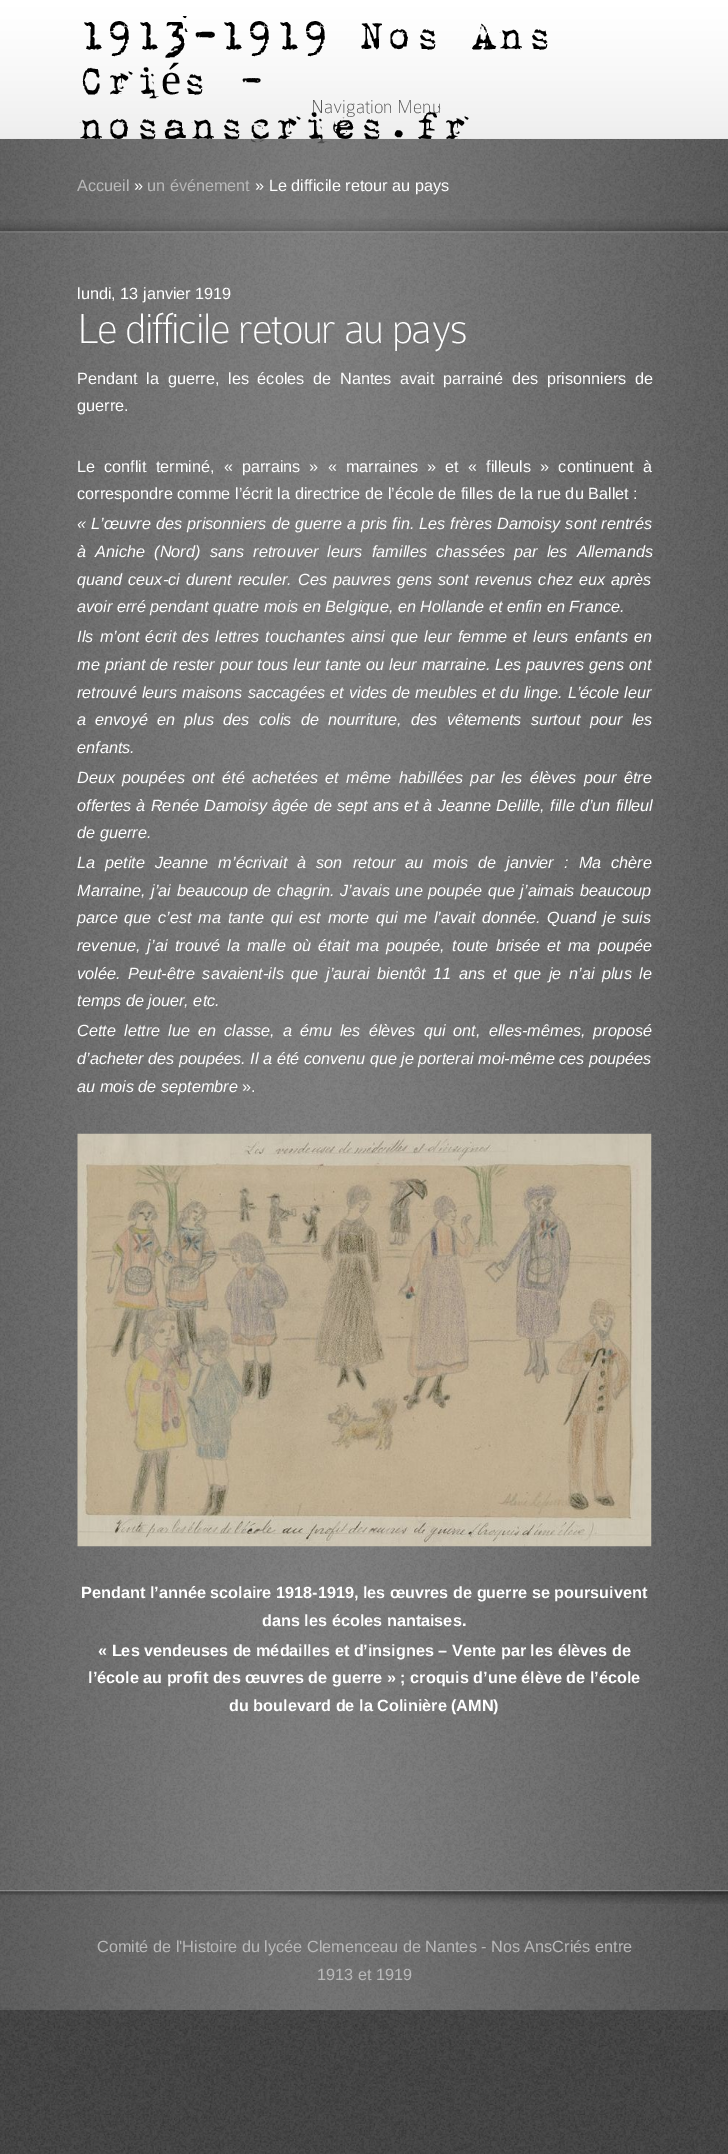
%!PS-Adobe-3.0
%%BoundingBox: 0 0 728 2154
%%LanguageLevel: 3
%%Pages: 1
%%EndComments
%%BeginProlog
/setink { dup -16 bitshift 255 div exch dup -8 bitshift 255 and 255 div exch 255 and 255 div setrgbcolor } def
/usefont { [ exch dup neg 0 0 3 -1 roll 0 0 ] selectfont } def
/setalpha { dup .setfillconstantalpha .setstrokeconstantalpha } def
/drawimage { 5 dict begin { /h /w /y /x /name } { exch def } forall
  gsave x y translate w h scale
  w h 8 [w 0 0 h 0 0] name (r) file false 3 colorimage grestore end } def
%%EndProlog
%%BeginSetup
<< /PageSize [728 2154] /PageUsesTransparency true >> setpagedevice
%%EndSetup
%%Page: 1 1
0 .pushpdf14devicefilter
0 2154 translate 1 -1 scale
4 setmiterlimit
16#FFFFFF setink
0 0 728 2154 rectfill
(img1.raw) 0 139 728 2015 drawimage
(img2.raw) 0 0 728 138 drawimage
/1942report-Bold 45 usefont
16#000000 setink
77 49 moveto -1.25 0 (1913-1919) ashow
/1942report-Regular 45 usefont
357 49 moveto -1.25 0 (Nos Ans) ashow
77 94 moveto -1.25 0 (Cri) ashow
/LiberationSerif-Regular 45 usefont
161 94 moveto -1.25 0 (é) ashow
/1942report-Regular 45 usefont
180 94 moveto -1.25 0 (s -) ashow
77 139 moveto -1.25 0 (nosanscries.fr) ashow
/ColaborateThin-Thin 20 usefont
16#535353 setink
311 113 moveto (Navigation Menu) show
(img3.raw) 0 228 728 5 drawimage
(img4.raw) 0 219 728 14 drawimage
0.09 setalpha
16#000000 setink
0 138 728 95 rectfill
1 setalpha
(img5.raw) 0 138 728 95 drawimage
/LiberationSans-Regular 16.25 usefont
16#B9B9B9 setink
77 191 moveto (Accueil) show
16#FFFFFF setink
134 191 moveto (») show
16#B9B9B9 setink
147 191 moveto (un événement) show
16#FFFFFF setink
255 191 moveto (» Le difficile retour au pays) show
(img6.raw) 0 232 728 1778 drawimage
77 299 moveto (lundi, 13 janvier 1919) show
/ColaborateThin-Thin 45 usefont
77 343 moveto -1.25 0 (Le difficile retour au pays) ashow
/LiberationSans-Regular 16.25 usefont
77 384 moveto 4.25 0 32 (Pendant la guerre, les écoles de Nantes avait parrainé des prisonniers de) widthshow
77 411 moveto (guerre.) show
77 472 moveto 4.6 0 32 (Le conflit terminé, « parrains » « marraines » et « filleuls » continuent à) widthshow
77 499 moveto (correspondre comme l’écrit la directrice de l’école de filles de la rue du Ballet :) show
/LiberationSans-Italic 16.25 usefont
77 529 moveto 0.6 0 32 (« L’œuvre des prisonniers de guerre a pris fin. Les frères Damoisy sont rentrés) widthshow
77 557 moveto 4.75 0 32 (à Aniche \(Nord\) sans retrouver leurs familles chassées par les Allemands) widthshow
77 585 moveto 1.5 0 32 (quand ceux-ci durent reculer. Ces pauvres gens sont revenus chez eux après) widthshow
77 612 moveto (avoir erré pendant quatre mois en Belgique, en Hollande et enfin en France.) show
77 642 moveto 1.75 0 32 (Ils m’ont écrit des lettres touchantes ainsi que leur femme et leurs enfants en) widthshow
77 670 moveto 0.5 0 32 (me priant de rester pour tous leur tante ou leur marraine. Les pauvres gens ont) widthshow
77 698 moveto 0.6 0 32 (retrouvé leurs maisons saccagées et vides de meubles et du linge. L’école leur) widthshow
77 725 moveto 4.75 0 32 (a envoyé en plus des colis de nourriture, des vêtements surtout pour les) widthshow
77 753 moveto (enfants.) show
77 783 moveto 2.9 0 32 (Deux poupées ont été achetées et même habillées par les élèves pour être) widthshow
77 811 moveto 0.75 0 32 (offertes à Renée Damoisy âgée de sept ans et à Jeanne Delille, fille d’un filleul) widthshow
77 838 moveto (de guerre.) show
77 868 moveto 5.6 0 32 (La petite Jeanne m’écrivait à son retour au mois de janvier : Ma chère) widthshow
77 896 moveto 1 0 32 (Marraine, j’ai beaucoup de chagrin. J’avais une poupée que j’aimais beaucoup) widthshow
77 923 moveto 2.25 0 32 (parce que c’est ma tante qui est morte qui me l’avait donnée. Quand je suis) widthshow
77 951 moveto 2.75 0 32 (revenue, j’ai trouvé la malle où était ma poupée, toute brisée et ma poupée) widthshow
77 979 moveto 3.1 0 32 (volée. Peut-être savaient-ils que j’aurai bientôt 11 ans et que je n’ai plus le) widthshow
77 1006 moveto (temps de jouer, etc.) show
77 1036 moveto 3.6 0 32 (Cette lettre lue en classe, a ému les élèves qui ont, elles-mêmes, proposé) widthshow
77 1064 moveto (d’acheter des poupées. Il a été convenu que je porterai moi-même ces poupées) show
77 1092 moveto (au mois de septembre) show
/LiberationSans-Regular 16.25 usefont
242 1092 moveto (».) show
(img7.raw) 77 1133 575 414 drawimage
/LiberationSans-Bold 16.25 usefont
[
    [(Pendant l’année scolaire 1918-1919, les œuvres de guerre se poursuivent) 81 1598]
    [(dans les écoles nantaises.) 262 1626]
    [(« Les vendeuses de médailles et d’insignes – Vente par les élèves de) 98 1656]
    [(l’école au profit des œuvres de guerre » ; croquis d’une élève de l’école) 88 1683]
    [(du boulevard de la Colinière \(AMN\)) 229 1711]
] { aload pop moveto show } forall
0.09 setalpha
16#000000 setink
0 1890 728 120 rectfill
1 setalpha
(img8.raw) 0 1890 728 5 drawimage
(img9.raw) 0 1890 728 14 drawimage
/LiberationSans-Regular 16.25 usefont
16#B9B9B9 setink
97 1952 moveto (Comité de l'Histoire du lycée Clemenceau de Nantes - Nos AnsCriés entre) show
317 1980 moveto (1913 et 1919) show
.poppdf14devicefilter showpage
%%EOF
